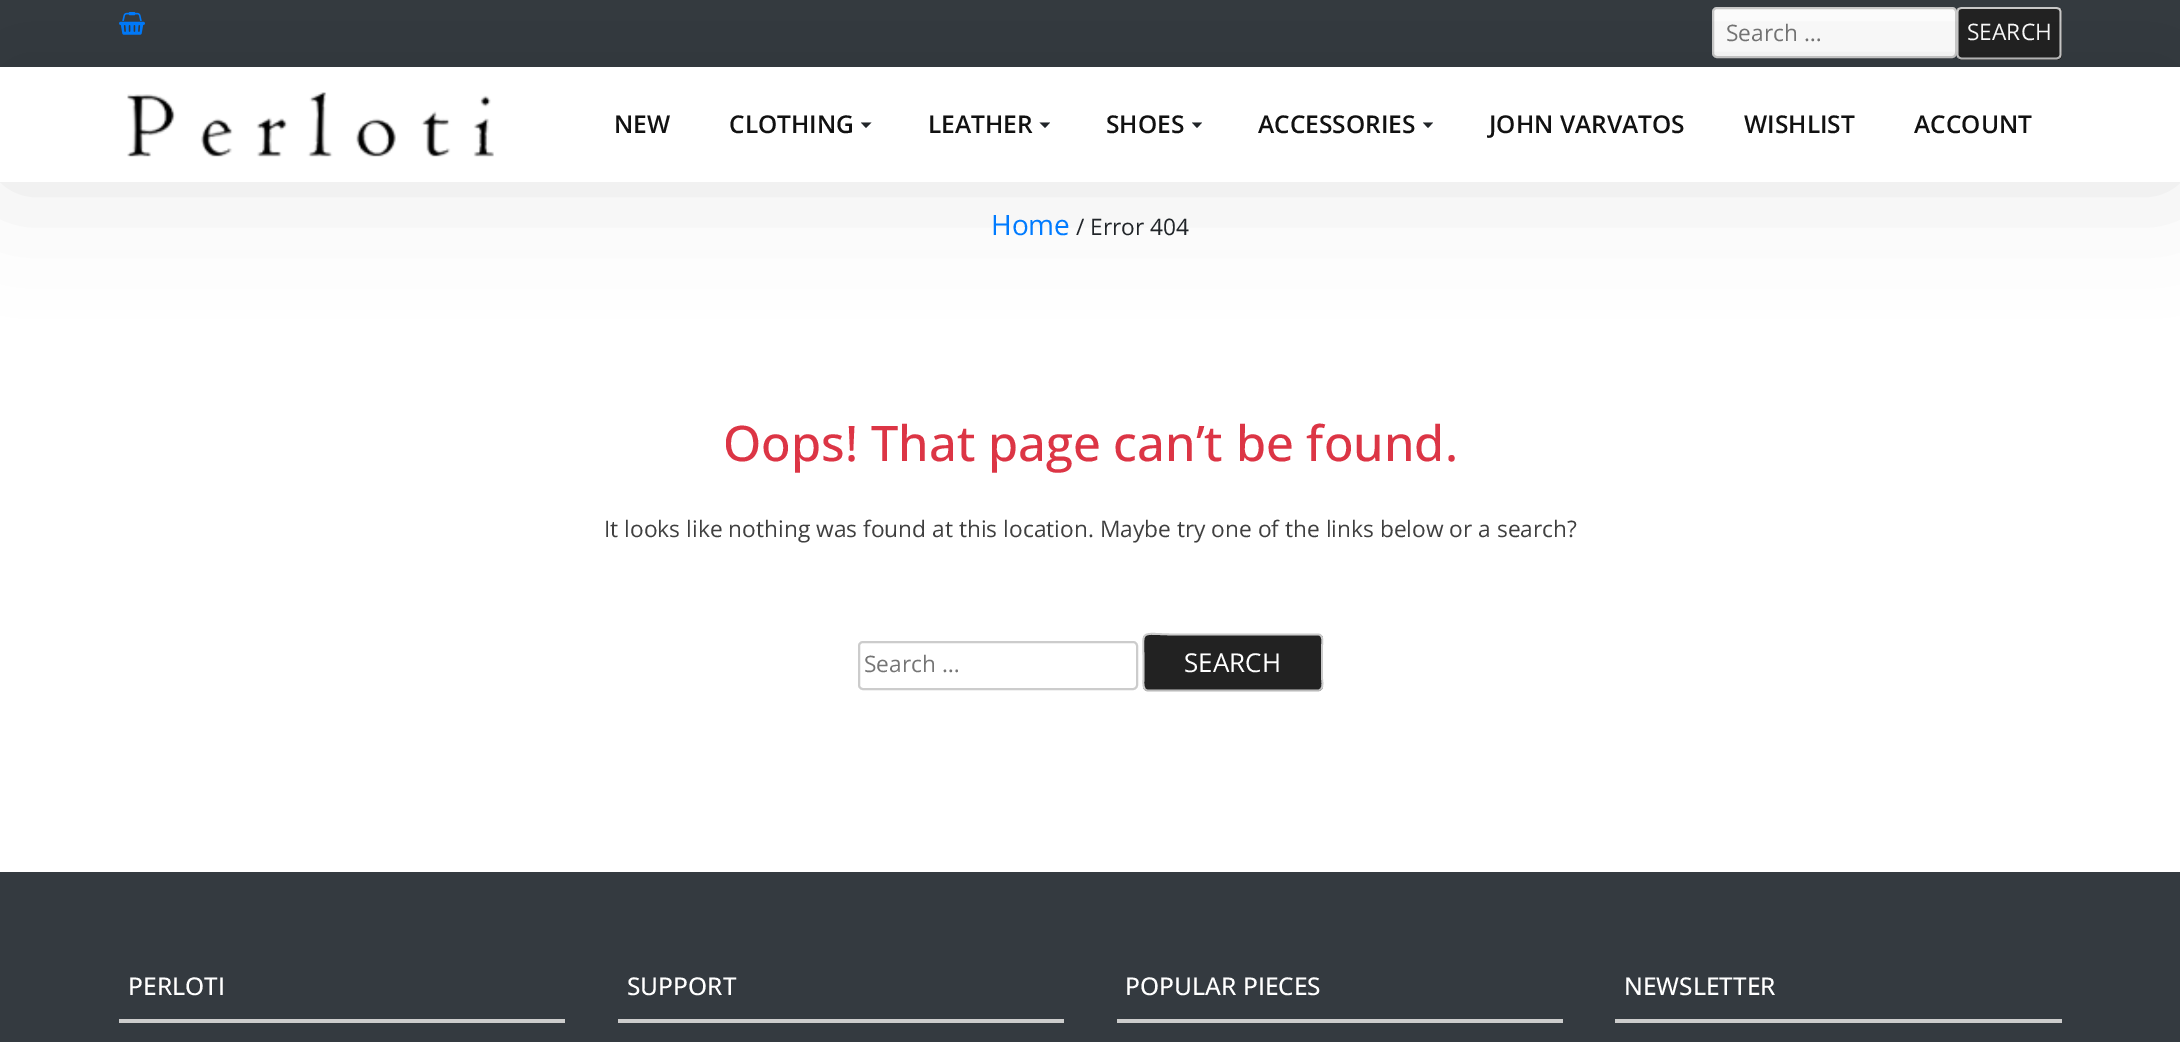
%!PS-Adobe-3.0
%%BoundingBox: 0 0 2180 1042
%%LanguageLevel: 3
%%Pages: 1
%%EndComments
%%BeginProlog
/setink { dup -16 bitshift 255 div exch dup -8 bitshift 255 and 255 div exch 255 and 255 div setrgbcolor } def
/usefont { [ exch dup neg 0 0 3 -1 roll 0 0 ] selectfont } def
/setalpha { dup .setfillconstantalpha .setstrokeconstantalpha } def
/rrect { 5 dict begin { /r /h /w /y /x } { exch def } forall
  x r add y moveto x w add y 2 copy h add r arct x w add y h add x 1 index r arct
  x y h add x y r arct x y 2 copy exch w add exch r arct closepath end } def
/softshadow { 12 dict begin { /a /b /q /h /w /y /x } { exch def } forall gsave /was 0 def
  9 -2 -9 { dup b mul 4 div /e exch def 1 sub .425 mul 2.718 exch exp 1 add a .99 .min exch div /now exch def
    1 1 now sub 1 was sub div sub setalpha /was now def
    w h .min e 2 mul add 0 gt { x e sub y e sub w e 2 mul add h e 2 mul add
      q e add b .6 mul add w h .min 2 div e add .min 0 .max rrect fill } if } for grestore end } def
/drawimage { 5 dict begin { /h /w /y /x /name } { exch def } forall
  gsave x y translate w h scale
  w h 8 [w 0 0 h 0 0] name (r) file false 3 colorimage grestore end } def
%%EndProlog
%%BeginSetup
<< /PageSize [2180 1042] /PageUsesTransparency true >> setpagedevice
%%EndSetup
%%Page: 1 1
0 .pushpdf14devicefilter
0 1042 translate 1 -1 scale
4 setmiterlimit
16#FFFFFF setink
0 0 2180 1042 rectfill
16#343A40 setink
0 0 2180 67 rectfill
(img1.raw) 119 12 26 23 drawimage
16#FFFFFF setink
1713 8 243 49 4 rrect gsave fill grestore
16#CCCCCC setink
2 setlinewidth
stroke
/OpenSans-Regular 22.75 usefont
16#757575 setink
1726 41 moveto (Search …) show
16#222222 setink
1957 7 105 53 5 rrect fill
16#BBBBBB setink
1.8 setlinewidth
2059.5 57.5 moveto 2056.5 58.5 lineto 1961.5 58.5 lineto 1958.5 57.5 lineto stroke
16#CCCCCC setink
1958.5 57.5 moveto 1958 56.5 1957.5 55.5 1957.5 54 curveto 1957.5 12.5 lineto 1957.5 11 1958 10 1958.5 9 curveto 1959.5 8.5 1960.5 8 1962 8 curveto 2056 8 lineto 2057.5 8 2058.5 8.5 2059.5 9 curveto 2060 10 2060.5 11 2060.5 12 curveto 2060.5 54 lineto 2060.5 55.5 2060 56.5 2059.5 57.5 curveto stroke
16#FFFFFF setink
1967 40 moveto (SEARCH) show
gsave
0 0 moveto 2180 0 lineto 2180 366 lineto 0 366 lineto closepath 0 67 moveto 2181 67 lineto 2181 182 lineto 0 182 lineto closepath eoclip newpath
16#000000 setink
0 67 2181 115 0 61 0.11 softshadow
grestore
(img2.raw) 127 92 367 65 drawimage
/OpenSans-SemiBold 24.5 usefont
16#111111 setink
614 133 moveto (NEW) show
729 133 moveto (CLOTHING) show
16#212529 setink
861 122.5 moveto 871.5 122.5 lineto 866 128 lineto closepath fill
16#111111 setink
928 133 moveto (LEATHER) show
16#212529 setink
1039.5 122.5 moveto 1050 122.5 lineto 1045 128 lineto closepath fill
16#111111 setink
1106 133 moveto (SHOES) show
16#212529 setink
1192 122.5 moveto 1202 122.5 lineto 1197 128 lineto closepath fill
16#111111 setink
1258 133 moveto (ACCESSORIES) show
16#212529 setink
1423 122.5 moveto 1433 122.5 lineto 1428 128 lineto closepath fill
16#111111 setink
[
    [(JOHN VARVATOS) 1489 133]
    [(WISHLIST) 1744 133]
    [(ACCOUNT) 1914 133]
] { aload pop moveto show } forall
/OpenSans-Regular 28 usefont
16#007BFF setink
991 235 moveto (Home) show
/OpenSans-Regular 22.75 usefont
16#212529 setink
1076 235 moveto (/ Error 404) show
/OpenSans-Medium 49 usefont
16#DC3545 setink
723 461 moveto (Oops! That page can’t be found.) show
/OpenSans-Regular 22.75 usefont
16#3F3F3F setink
604 537 moveto (It looks like nothing was found at this location. Maybe try one of the links below or a search?) show
16#CCCCCC setink
2 setlinewidth
859 642 278 47 4 rrect stroke
16#757575 setink
864 672 moveto (Search …) show
16#222222 setink
1143 634 180 57 5 rrect fill
16#BBBBBB setink
1.8 setlinewidth
1321 689 moveto 1320 690 1319 690.5 1318 690.5 curveto 1148 690.5 lineto 1147 690.5 1145.5 690 1145 689 curveto stroke
16#CCCCCC setink
1145 689 moveto 1142.5 686.5 1143.5 680 1143.5 678 curveto 1143.5 662.5 lineto 1143.5 627 1137.5 634.5 1176.5 634.5 curveto 1318 634.5 lineto 1324 634.5 1322 643.5 1322 646.5 curveto 1322 678 lineto 1322 680 1323.5 686.5 1321 689 curveto stroke
/OpenSans-Regular 26 usefont
16#FFFFFF setink
1184 672 moveto (SEARCH) show
16#343A40 setink
0 872 2180 170 rectfill
16#CCCCCC setink
119 1019 446 4 rectfill
/OpenSans-Medium 24.5 usefont
16#FFFFFF setink
128 995 moveto (PERLOTI) show
16#CCCCCC setink
618 1019 446 4 rectfill
16#FFFFFF setink
627 995 moveto (SUPPORT) show
16#CCCCCC setink
1117 1019 446 4 rectfill
16#FFFFFF setink
1125 995 moveto (POPULAR PIECES) show
16#CCCCCC setink
1615 1019 447 4 rectfill
16#FFFFFF setink
1624 995 moveto (NEWSLETTER) show
.poppdf14devicefilter showpage
%%EOF
